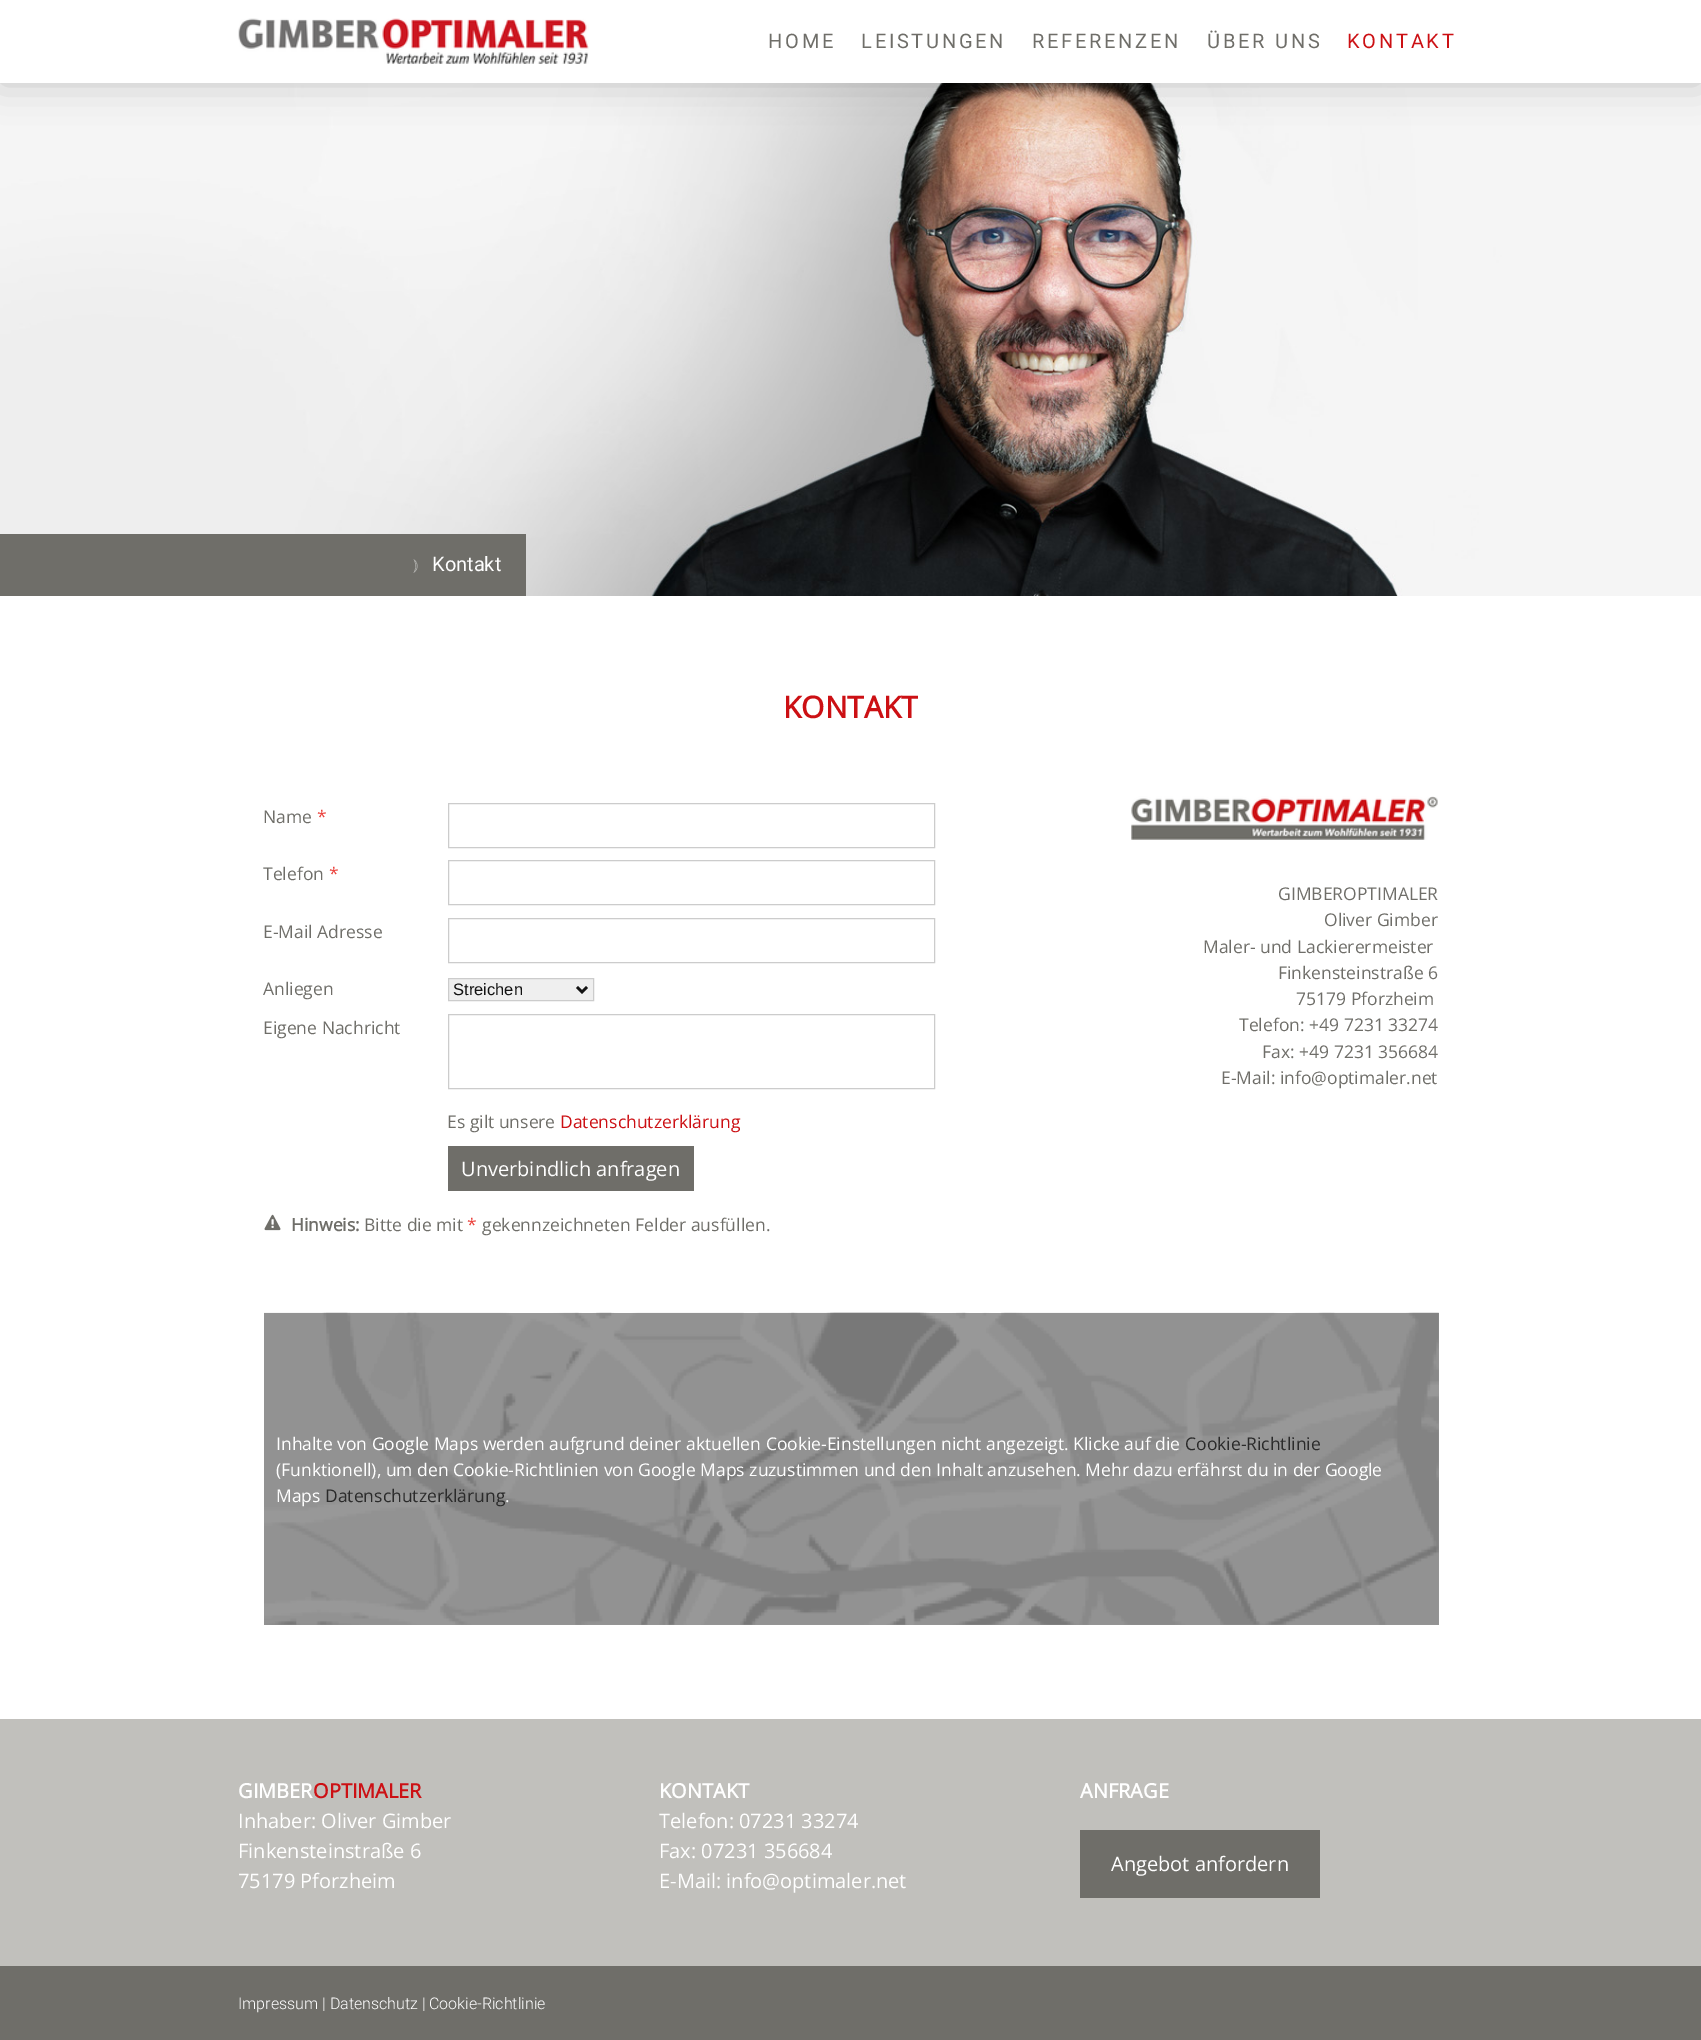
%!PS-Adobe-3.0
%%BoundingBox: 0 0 1701 2040
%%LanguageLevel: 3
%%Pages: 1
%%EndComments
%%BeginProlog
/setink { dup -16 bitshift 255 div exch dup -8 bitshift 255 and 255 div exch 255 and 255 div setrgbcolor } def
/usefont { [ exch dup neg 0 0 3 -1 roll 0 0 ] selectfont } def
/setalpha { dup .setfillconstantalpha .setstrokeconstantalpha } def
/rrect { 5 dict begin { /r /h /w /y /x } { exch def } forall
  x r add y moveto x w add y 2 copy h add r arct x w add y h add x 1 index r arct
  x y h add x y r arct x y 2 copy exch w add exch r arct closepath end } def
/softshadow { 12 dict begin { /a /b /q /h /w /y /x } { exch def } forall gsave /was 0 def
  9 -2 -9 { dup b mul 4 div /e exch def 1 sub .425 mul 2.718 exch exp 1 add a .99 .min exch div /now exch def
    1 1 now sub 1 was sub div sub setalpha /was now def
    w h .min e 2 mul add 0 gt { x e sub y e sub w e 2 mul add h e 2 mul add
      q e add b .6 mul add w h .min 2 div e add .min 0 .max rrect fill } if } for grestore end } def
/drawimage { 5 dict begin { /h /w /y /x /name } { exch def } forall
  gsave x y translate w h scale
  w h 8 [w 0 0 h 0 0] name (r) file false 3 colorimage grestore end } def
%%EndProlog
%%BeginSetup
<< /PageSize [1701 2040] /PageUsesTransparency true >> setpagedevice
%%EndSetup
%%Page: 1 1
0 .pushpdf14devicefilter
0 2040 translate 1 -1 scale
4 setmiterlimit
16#FFFFFF setink
0 0 1701 2040 rectfill
16#999999 setink
264 1313 1175 312 rectfill
(img2.raw) 0 83 1701 513 drawimage
16#000000 setink
0 0 1701 83 0 19 0.2 softshadow
16#FFFFFF setink
0 0 1701 83 rectfill
(img1.raw) 238 18 351 46 drawimage
/Roboto-Regular 20 usefont
16#6F6E69 setink
768 48 moveto 2.75 0 (HOME) ashow
861 48 moveto 2.75 0 (LEISTUNGEN) ashow
1032 48 moveto 2.75 0 (REFERENZEN) ashow
1207 48 moveto 2.75 0 (ÜBER UNS) ashow
16#CC1014 setink
1347 48 moveto 2.75 0 (KONTAKT) ashow
16#6F6E69 setink
0 534 526 62 rectfill
/FreeSerif-Regular 16 usefont
16#B7B7B4 setink
413 570 moveto (⦆) show
/Roboto-Regular 20 usefont
16#FFFFFF setink
432 571 moveto (Kontakt) show
/OpenSans-Bold 30 usefont
16#CC1014 setink
783 718 moveto (KONTAKT) show
/OpenSans-Regular 17.5 usefont
16#6F6E69 setink
263 823 moveto (Name) show
16#EB433E setink
317 823 moveto (*) show
16#CCCCCC setink
448.5 803.5 486 44 rectstroke
16#6F6E69 setink
263 880 moveto (Telefon) show
16#EB433E setink
329 880 moveto (*) show
16#CCCCCC setink
448.5 860.5 486 44 rectstroke
16#6F6E69 setink
263 938 moveto (E-Mail Adresse) show
16#CCCCCC setink
448.5 918.5 486 44 rectstroke
16#6F6E69 setink
263 995 moveto (Anliegen) show
16#EFEFEF setink
448.5 978.5 moveto 593.5 978.5 lineto 593.5 1000.5 lineto 448.5 1000.5 lineto closepath gsave fill grestore
16#CCCCCC setink
stroke
16#131313 setink
2.5 setlinewidth
577 987 moveto 582 992 lineto 587 987 lineto stroke
/LiberationSans-Regular 16.5 usefont
453 995 moveto (Streichen) show
/OpenSans-Regular 17.5 usefont
16#6F6E69 setink
263 1034 moveto (Eigene Nachricht) show
16#CCCCCC setink
1 setlinewidth
448.5 1014.5 486 74 rectstroke
16#6F6E69 setink
447 1128 moveto (Es gilt unsere) show
16#CC1014 setink
560 1128 moveto (Datenschutzerklärung) show
16#6F6E69 setink
448 1146 246 45 rectfill
/OpenSans-Regular 20 usefont
16#FFFFFF setink
461 1176 moveto (Unverbindlich anfragen) show
(img3.raw) 264 1214 17 17 drawimage
/OpenSans-Bold 17.5 usefont
16#6F6E69 setink
291 1231 moveto (Hinweis:) show
/OpenSans-Regular 17.5 usefont
364 1231 moveto (Bitte die mit) show
16#EB433E setink
467 1231 moveto (*) show
16#6F6E69 setink
482 1231 moveto (gekennzeichneten Felder ausfüllen.) show
(img4.raw) 1131 796 307 44 drawimage
[
    [(GIMBEROPTIMALER) 1278 900]
    [(Oliver Gimber) 1324 926]
    [(Maler- und Lackierermeister) 1203 953]
    [(Finkensteinstraße 6) 1278 979]
    [(75179 Pforzheim) 1296 1005]
    [(Telefon: +49 7231 33274) 1239 1031]
    [(Fax: +49 7231 356684) 1262 1058]
    [(E-Mail: info@optimaler.net) 1221 1084]
] { aload pop moveto show } forall
(img5.raw) 264 1312 1175 313 drawimage
16#FFFFFF setink
276 1450 moveto (Inhalte von Google Maps werden aufgrund deiner aktuellen Cookie-Einstellungen nicht angezeigt. Klicke auf die) show
16#2A2A2A setink
1185 1450 moveto (Cookie-Richtlinie) show
16#FFFFFF setink
276 1476 moveto (\(Funktionell\), um den Cookie-Richtlinien von Google Maps zuzustimmen und den Inhalt anzusehen. Mehr dazu erfährst du in der Google) show
276 1502 moveto (Maps) show
16#2A2A2A setink
325 1502 moveto (Datenschutzerklärung) show
16#FFFFFF setink
505 1502 moveto (.) show
16#C1C0BC setink
0 1719 1701 247 rectfill
/OpenSans-Bold 20 usefont
16#FFFFFF setink
238 1798 moveto (GIMBER) show
16#CC1014 setink
313 1798 moveto (OPTIMALER) show
/OpenSans-Regular 20 usefont
16#FFFFFF setink
[
    [(Inhaber: Oliver Gimber) 238 1828]
    [(Finkensteinstraße 6) 238 1858]
    [(75179 Pforzheim) 238 1888]
] { aload pop moveto show } forall
/OpenSans-Bold 20 usefont
659 1798 moveto (KONTAKT) show
/OpenSans-Regular 20 usefont
[
    [(Telefon: 07231 33274) 659 1828]
    [(Fax: 07231 356684) 659 1858]
    [(E-Mail: info@optimaler.net) 659 1888]
] { aload pop moveto show } forall
/OpenSans-Bold 20 usefont
1080 1798 moveto (ANFRAGE) show
16#6F6E69 setink
1080 1830 240 68 rectfill
/OpenSans-Regular 20 usefont
16#FFFFFF setink
1111 1871 moveto (Angebot anfordern) show
16#6F6E69 setink
0 1966 1701 74 rectfill
/Roboto-Light 16 usefont
16#FFFFFF setink
238 2009 moveto (Impressum | Datenschutz | Cookie-Richtlinie) show
.poppdf14devicefilter showpage
%%EOF
